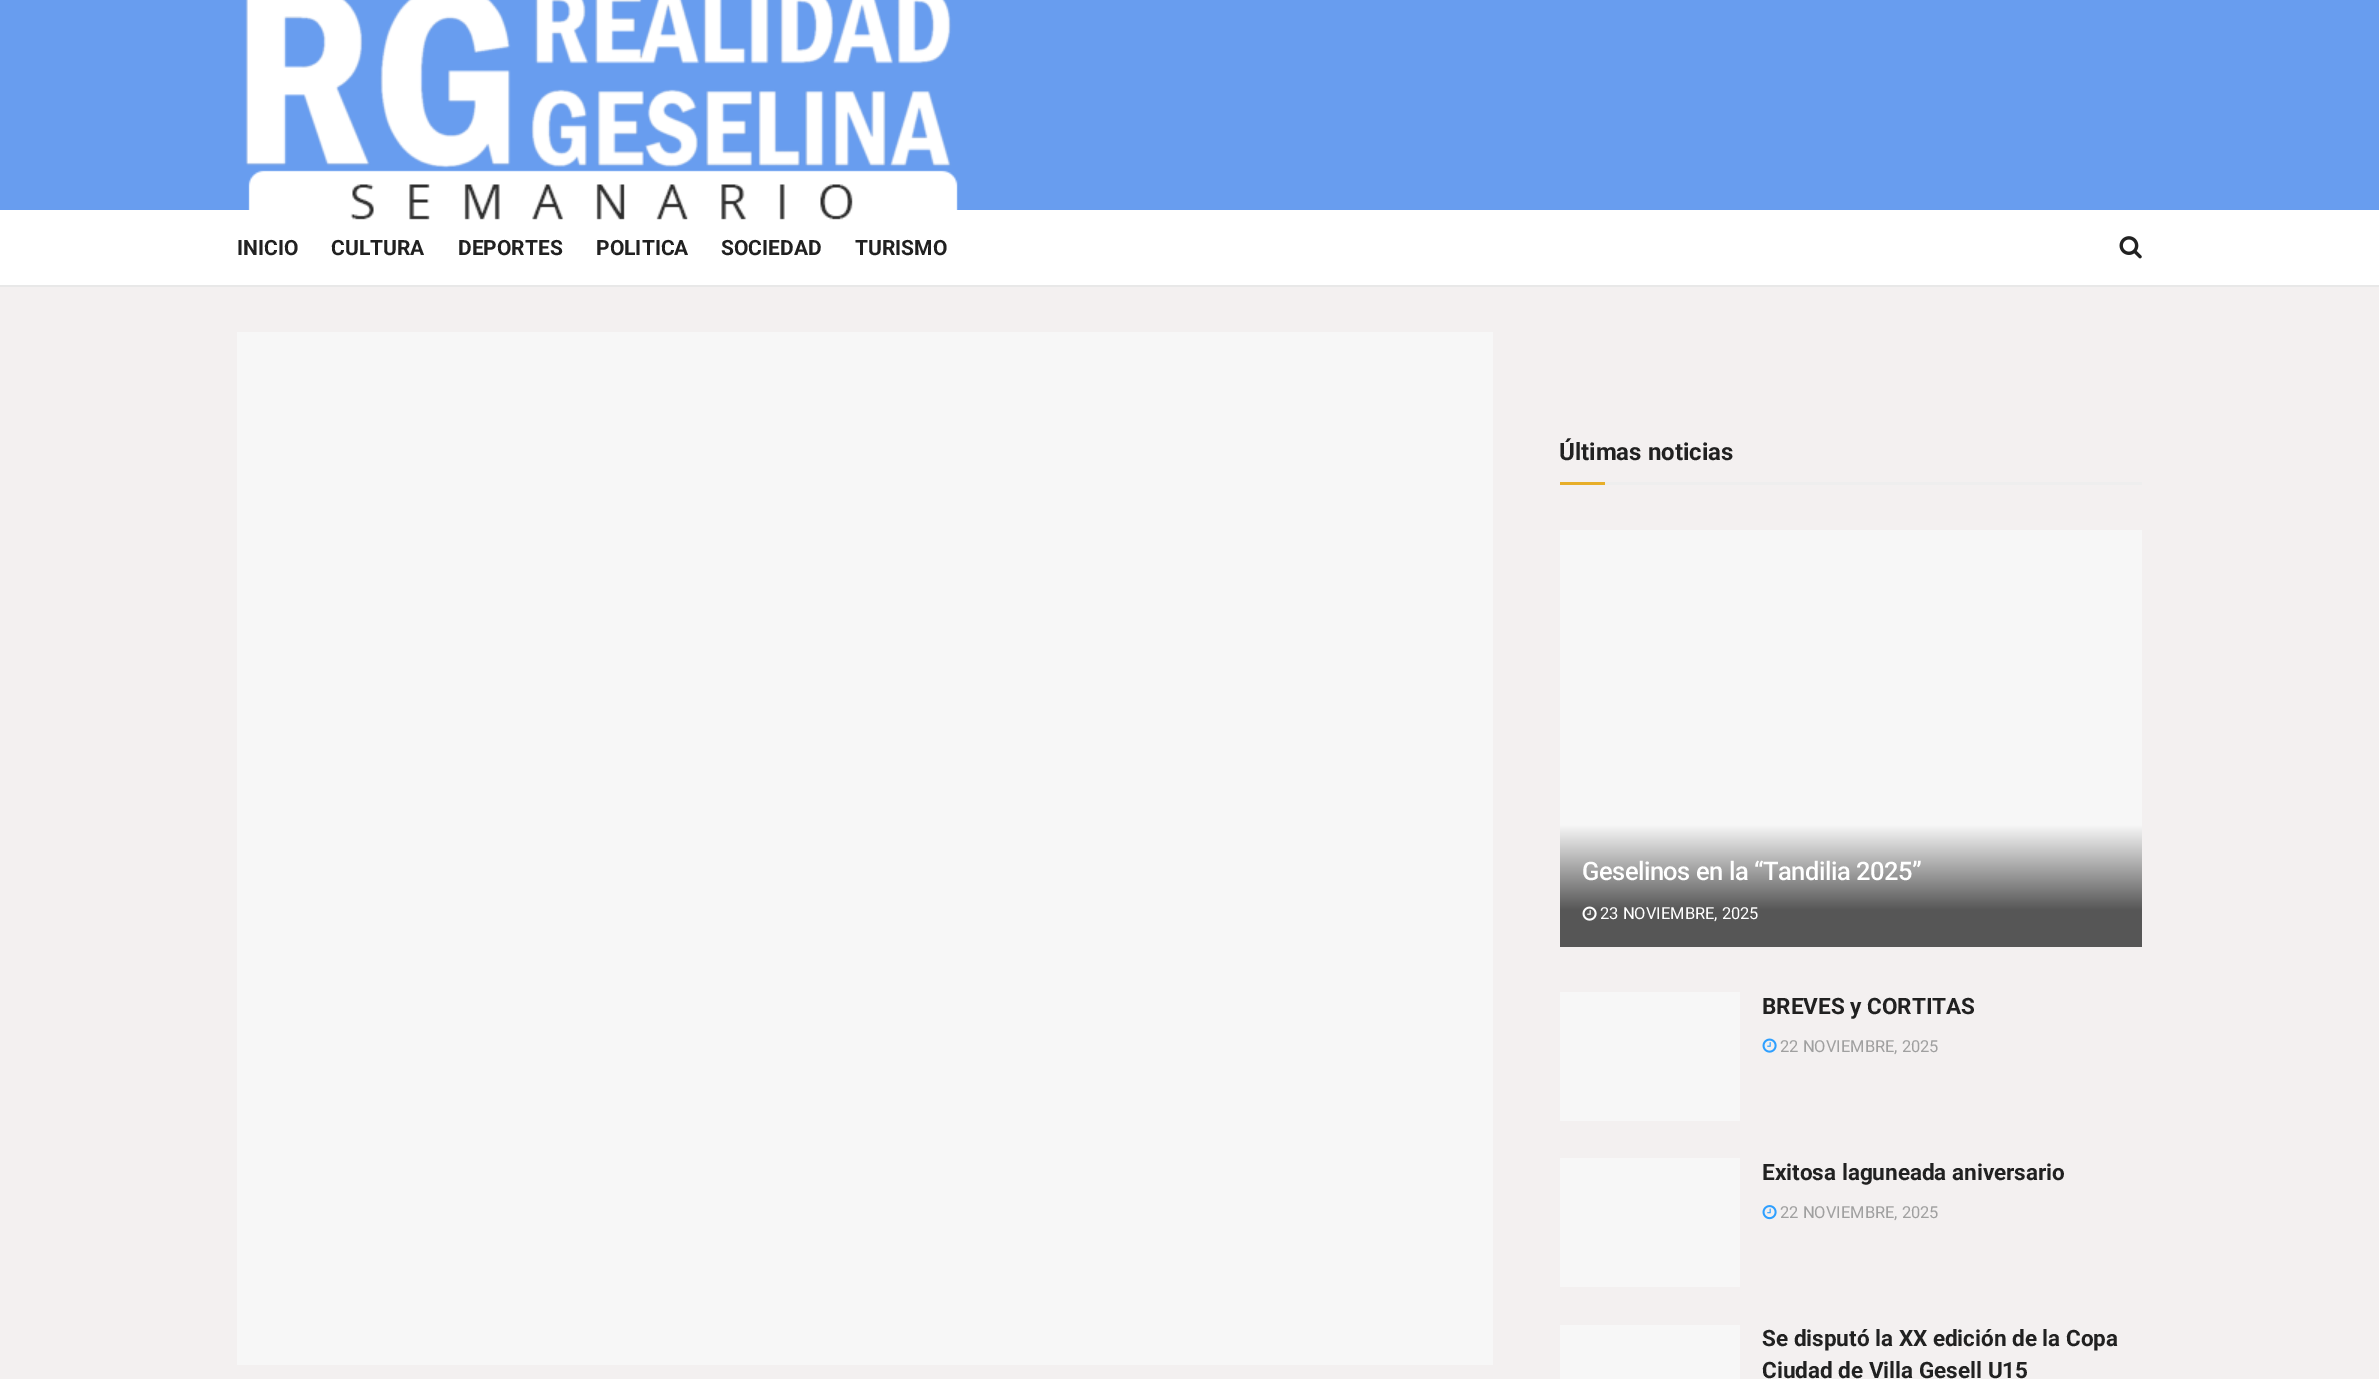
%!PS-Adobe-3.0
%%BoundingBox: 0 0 2379 1379
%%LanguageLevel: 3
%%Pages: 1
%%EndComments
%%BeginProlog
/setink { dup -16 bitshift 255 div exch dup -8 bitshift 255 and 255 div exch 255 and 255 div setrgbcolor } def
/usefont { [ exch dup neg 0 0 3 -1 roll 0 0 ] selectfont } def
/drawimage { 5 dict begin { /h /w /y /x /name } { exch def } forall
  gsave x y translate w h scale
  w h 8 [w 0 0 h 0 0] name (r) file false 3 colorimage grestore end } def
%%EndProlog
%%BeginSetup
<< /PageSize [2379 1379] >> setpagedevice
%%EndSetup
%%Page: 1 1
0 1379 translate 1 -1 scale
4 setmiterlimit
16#FFFFFF setink
0 0 2379 1379 rectfill
16#689DEF setink
0 0 2379 210 rectfill
(img1.raw) 245 0 713 220 drawimage
16#E8E8E8 setink
0 285 2379 2 rectfill
/Roboto-Bold 21 usefont
16#212121 setink
[
    [(INICIO) 237 255]
    [(CULTURA) 331 255]
    [(DEPORTES) 458 255]
    [(POLITICA) 596 255]
    [(SOCIEDAD) 721 255]
    [(TURISMO) 855 255]
] { aload pop moveto show } forall
(img2.raw) 2119 236 23 23 drawimage
[
    [0 287 2379 1092 16#F3F0F0]
    [237 332 1256 1033 16#F7F7F7]
    [1605 482 537 3 16#EEEEEE]
] { aload pop setink rectfill } forall
/Roboto-Bold 24 usefont
16#212121 setink
1559 460 moveto (Últimas noticias) show
16#E7AE29 setink
1560 482 45 3 rectfill
16#F7F7F7 setink
1560 530 582 295 rectfill
gsave 1560 825 moveto 2142 825 lineto 2142 947 lineto 1560 947 lineto closepath clip newpath
<< /ShadingType 2 /ColorSpace /DeviceRGB /Coords [1851 825 1851 947] /Extend [true true] /Function << /FunctionType 3 /Domain [0 1] /Functions [<< /FunctionType 2 /Domain [0 1] /C0 [0.969 0.969 0.969] /C1 [0.337 0.337 0.337] /N 1 >> << /FunctionType 2 /Domain [0 1] /C0 [0.337 0.337 0.337] /C1 [0.337 0.337 0.337] /N 1 >>] /Bounds [0.7] /Encode [0 1 0 1] >> >> shfill grestore
/Roboto-Medium 25.5 usefont
16#FFFFFF setink
1582 880 moveto -0.5 0 (Geselinos en la “Tandilia 2025”) ashow
(img3.raw) 1582 906 15 15 drawimage
/Roboto-Regular 16.5 usefont
1600 919 moveto (23 NOVIEMBRE, 2025) show
16#F7F7F7 setink
1560 992 180 129 rectfill
/Roboto-Bold 22.5 usefont
16#212121 setink
1762 1014 moveto (BREVES y CORTITAS) show
(img4.raw) 1762 1038 15 15 drawimage
/Roboto-Regular 16.5 usefont
16#A0A0A0 setink
1780 1052 moveto (22 NOVIEMBRE, 2025) show
16#F7F7F7 setink
1560 1158 180 129 rectfill
/Roboto-Bold 22.5 usefont
16#212121 setink
1762 1180 moveto (Exitosa laguneada aniversario) show
(img5.raw) 1762 1205 15 15 drawimage
/Roboto-Regular 16.5 usefont
16#A0A0A0 setink
1780 1218 moveto (22 NOVIEMBRE, 2025) show
16#F7F7F7 setink
1560 1325 180 54 rectfill
/Roboto-Bold 22.5 usefont
16#212121 setink
1762 1346 moveto (Se disputó la XX edición de la Copa) show
1762 1378 moveto (Ciudad de Villa Gesell U15) show
showpage
%%EOF
